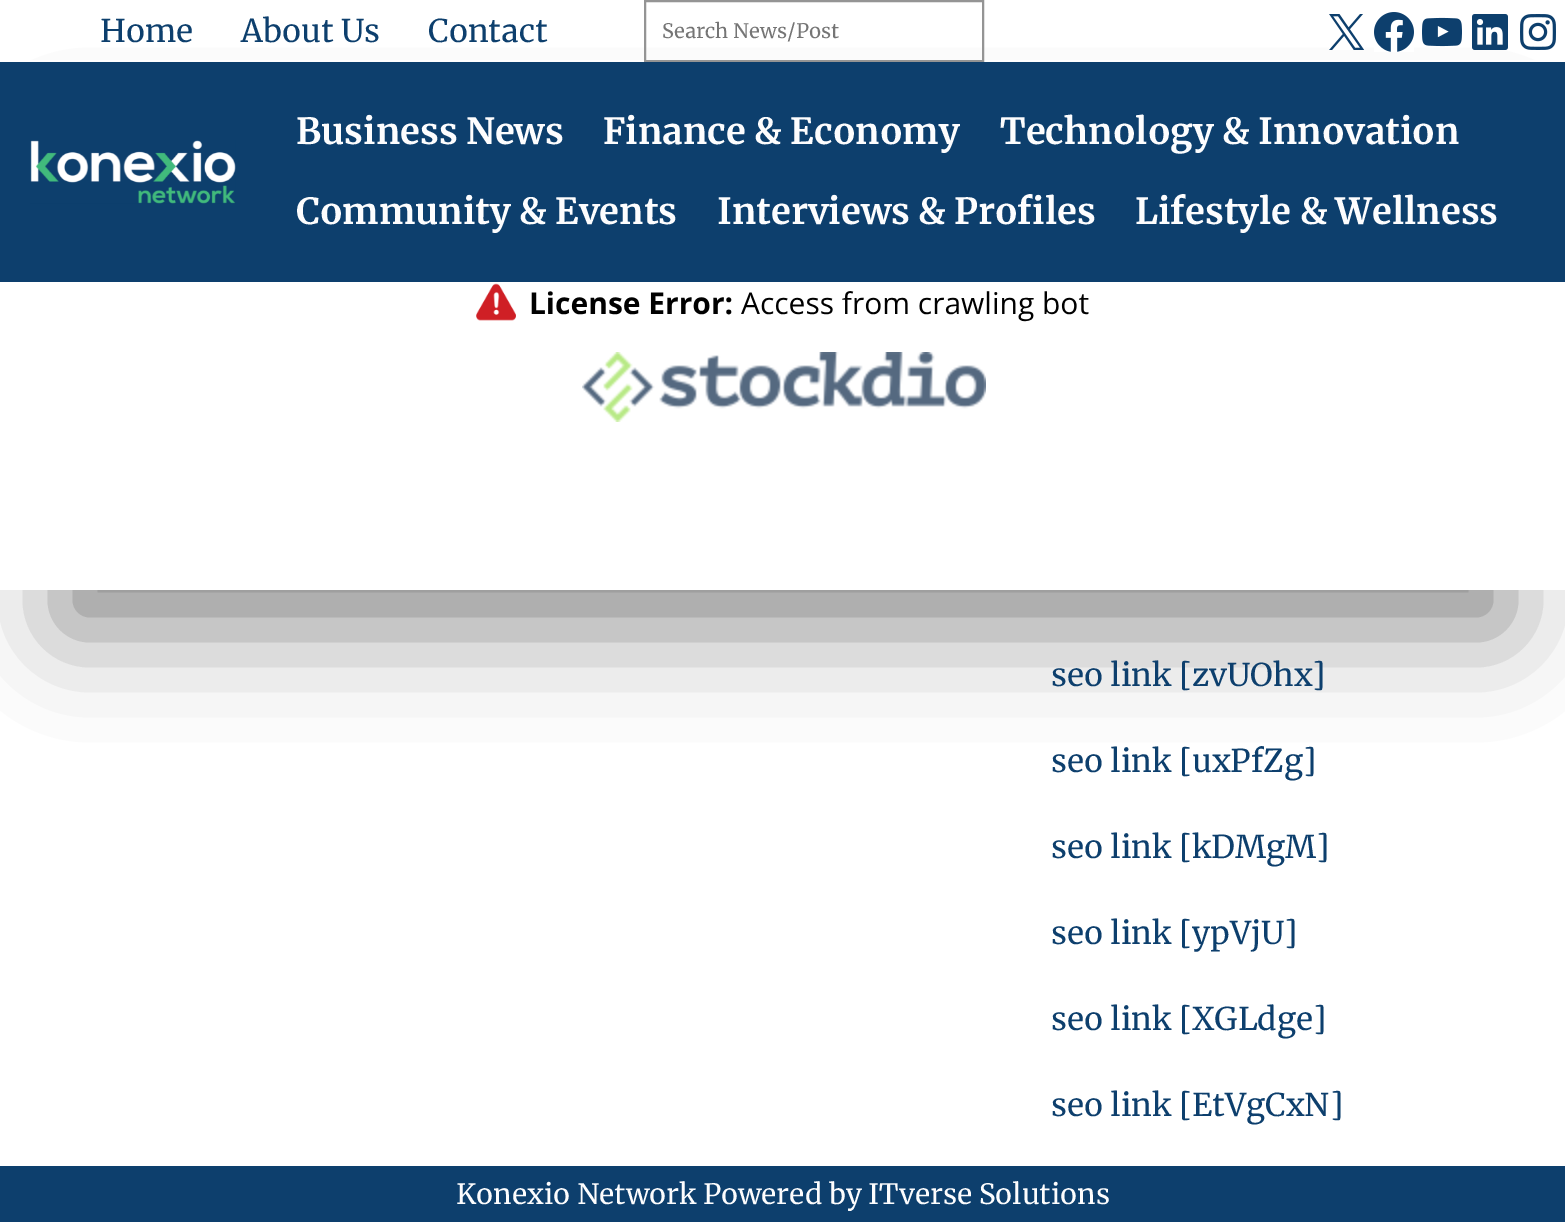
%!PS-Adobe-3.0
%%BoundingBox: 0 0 1565 1222
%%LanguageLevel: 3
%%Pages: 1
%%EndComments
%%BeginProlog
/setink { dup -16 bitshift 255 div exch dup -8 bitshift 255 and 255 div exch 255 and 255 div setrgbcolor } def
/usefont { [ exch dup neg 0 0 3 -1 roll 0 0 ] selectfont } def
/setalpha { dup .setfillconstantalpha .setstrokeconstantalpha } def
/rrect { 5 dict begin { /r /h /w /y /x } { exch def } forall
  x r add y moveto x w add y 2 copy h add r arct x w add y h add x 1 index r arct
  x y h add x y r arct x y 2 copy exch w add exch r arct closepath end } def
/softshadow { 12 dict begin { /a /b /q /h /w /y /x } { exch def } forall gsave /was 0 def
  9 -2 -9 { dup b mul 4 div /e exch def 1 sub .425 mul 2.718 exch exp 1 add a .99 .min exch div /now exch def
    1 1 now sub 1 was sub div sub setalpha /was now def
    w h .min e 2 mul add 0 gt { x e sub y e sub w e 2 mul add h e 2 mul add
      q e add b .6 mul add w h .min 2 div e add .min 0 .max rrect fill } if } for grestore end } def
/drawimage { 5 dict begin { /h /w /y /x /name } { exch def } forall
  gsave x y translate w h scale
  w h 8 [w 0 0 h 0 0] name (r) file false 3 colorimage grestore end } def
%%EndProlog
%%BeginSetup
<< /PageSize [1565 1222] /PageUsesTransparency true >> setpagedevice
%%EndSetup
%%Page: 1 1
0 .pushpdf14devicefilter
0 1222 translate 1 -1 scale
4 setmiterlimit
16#FFFFFF setink
0 0 1565 1222 rectfill
16#000000 setink
60 160 1446 470 0 50 0.44 softshadow
16#FFFFFF setink
0 60 1565 530 rectfill
/Merriweather-Regular 31.4 usefont
16#0D3F6D setink
[
    [(Home) 100 42]
    [(About Us) 241 42]
    [(Contact) 428 42]
] { aload pop moveto show } forall
16#949494 setink
2 setlinewidth
645 1 338 60 rectstroke
/Merriweather-Regular 20 usefont
16#757575 setink
662 38 moveto (Search News/Post) show
(img1.raw) 1329 14 36 36 drawimage
(img2.raw) 1374 12 40 40 drawimage
(img3.raw) 1422 17 40 30 drawimage
(img4.raw) 1472 14 36 36 drawimage
(img5.raw) 1520 14 36 36 drawimage
16#0D3F6D setink
0 62 1565 220 rectfill
(img6.raw) 30 140 206 64 drawimage
/Merriweather-Bold 36 usefont
16#FDFDFE setink
[
    [(Business News) 296 144]
    [(Finance & Economy) 603 144]
    [(Technology & Innovation) 1000 144]
    [(Community & Events) 296 224]
    [(Interviews & Profiles) 717 224]
    [(Lifestyle & Wellness) 1135 224]
] { aload pop moveto show } forall
(img7.raw) 476 283 613 139 drawimage
/Merriweather-Regular 31.4 usefont
16#0D3F6D setink
[
    [(seo link [zvUOhx]) 1051 686]
    [(seo link [uxPfZg]) 1051 772]
    [(seo link [kDMgM]) 1051 858]
    [(seo link [ypVjU]) 1051 944]
    [(seo link [XGLdge]) 1051 1030]
    [(seo link [EtVgCxN]) 1051 1116]
] { aload pop moveto show } forall
0 1166 1565 56 rectfill
/Merriweather-Regular 28 usefont
16#FDFDFE setink
456 1204 moveto (Konexio Network Powered by) show
868 1204 moveto (ITverse Solutions) show
.poppdf14devicefilter showpage
%%EOF
